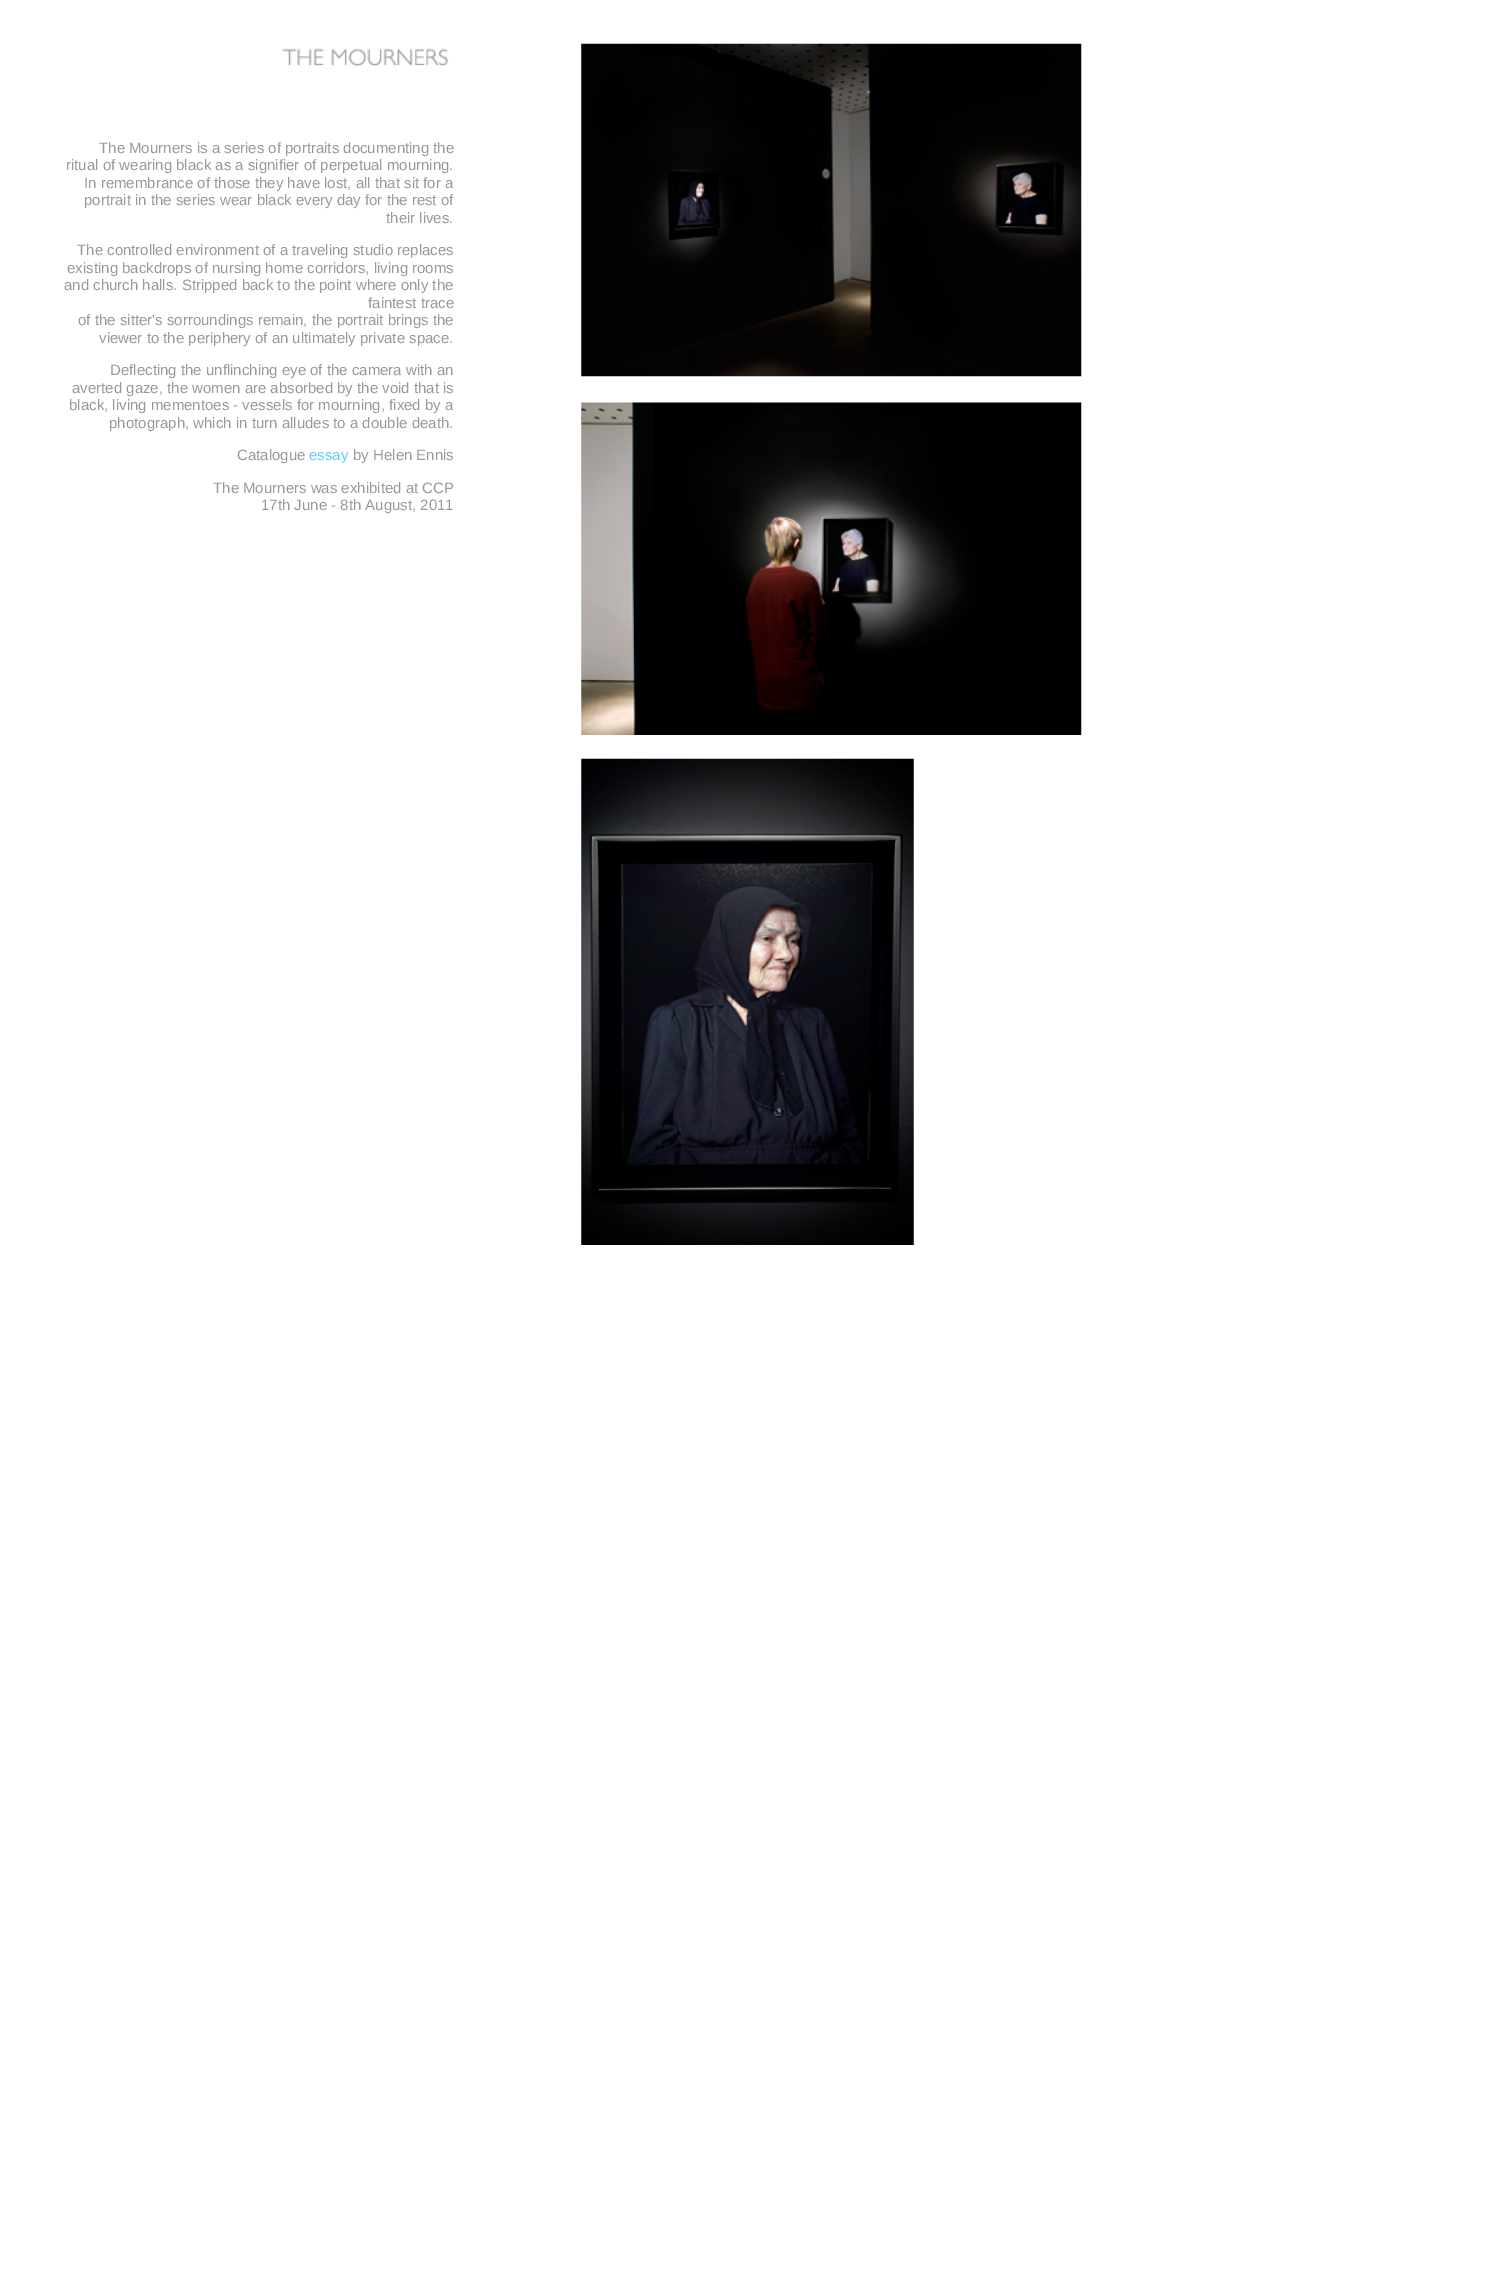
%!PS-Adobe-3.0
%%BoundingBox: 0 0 1487 2296
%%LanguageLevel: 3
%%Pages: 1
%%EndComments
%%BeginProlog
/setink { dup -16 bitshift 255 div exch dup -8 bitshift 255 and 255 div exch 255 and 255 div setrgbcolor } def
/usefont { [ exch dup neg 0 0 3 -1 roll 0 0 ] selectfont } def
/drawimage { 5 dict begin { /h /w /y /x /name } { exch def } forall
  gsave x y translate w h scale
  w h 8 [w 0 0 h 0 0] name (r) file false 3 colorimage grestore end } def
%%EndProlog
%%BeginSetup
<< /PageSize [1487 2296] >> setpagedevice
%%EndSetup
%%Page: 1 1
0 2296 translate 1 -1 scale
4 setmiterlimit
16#FFFFFF setink
0 0 1487 2296 rectfill
/LiberationSans-Regular 15 usefont
16#999999 setink
[
    [(The Mourners is a series of portraits documenting the) 99 153]
    [(ritual of wearing black as a signifier of perpetual mourning.) 66 170]
    [(In remembrance of those they have lost, all that sit for a) 84 188]
    [(portrait in the series wear black every day for the rest of) 84 205]
    [(their lives.) 386 223]
    [(The controlled environment of a traveling studio replaces) 77 255]
    [(existing backdrops of nursing home corridors, living rooms) 67 273]
    [(and church halls. Stripped back to the point where only the) 64 290]
    [(faintest trace) 368 308]
    [(of the sitter's sorroundings remain, the portrait brings the) 78 325]
    [(viewer to the periphery of an ultimately private space.) 99 343]
    [(Deflecting the unflinching eye of the camera with an) 110 375]
    [(averted gaze, the women are absorbed by the void that is) 72 393]
    [(black, living mementoes - vessels for mourning, fixed by a) 69 410]
    [(photograph, which in turn alludes to a double death.) 109 428]
    [(Catalogue) 237 460]
] { aload pop moveto show } forall
16#66CCFF setink
309 460 moveto (essay) show
16#999999 setink
[
    [(by Helen Ennis) 353 460]
    [(The Mourners was exhibited at CCP) 213 493]
    [(17th June - 8th August, 2011) 261 510]
] { aload pop moveto show } forall
(img1.raw) 282 48 167 19 drawimage
(img2.raw) 581 43 501 334 drawimage
(img3.raw) 581 402 501 333 drawimage
(img4.raw) 581 758 333 487 drawimage
showpage
%%EOF
